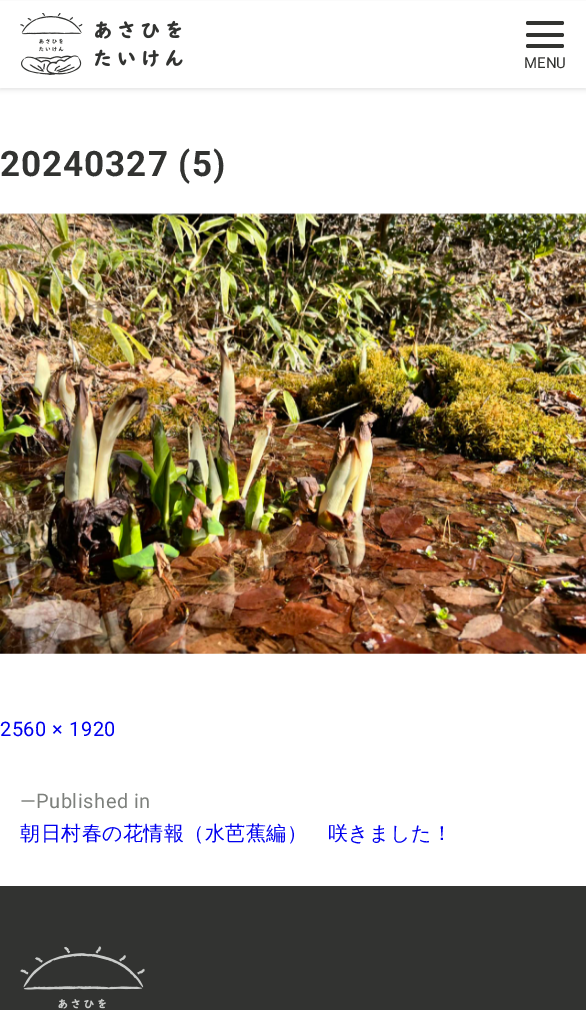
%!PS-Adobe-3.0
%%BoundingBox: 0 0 586 1010
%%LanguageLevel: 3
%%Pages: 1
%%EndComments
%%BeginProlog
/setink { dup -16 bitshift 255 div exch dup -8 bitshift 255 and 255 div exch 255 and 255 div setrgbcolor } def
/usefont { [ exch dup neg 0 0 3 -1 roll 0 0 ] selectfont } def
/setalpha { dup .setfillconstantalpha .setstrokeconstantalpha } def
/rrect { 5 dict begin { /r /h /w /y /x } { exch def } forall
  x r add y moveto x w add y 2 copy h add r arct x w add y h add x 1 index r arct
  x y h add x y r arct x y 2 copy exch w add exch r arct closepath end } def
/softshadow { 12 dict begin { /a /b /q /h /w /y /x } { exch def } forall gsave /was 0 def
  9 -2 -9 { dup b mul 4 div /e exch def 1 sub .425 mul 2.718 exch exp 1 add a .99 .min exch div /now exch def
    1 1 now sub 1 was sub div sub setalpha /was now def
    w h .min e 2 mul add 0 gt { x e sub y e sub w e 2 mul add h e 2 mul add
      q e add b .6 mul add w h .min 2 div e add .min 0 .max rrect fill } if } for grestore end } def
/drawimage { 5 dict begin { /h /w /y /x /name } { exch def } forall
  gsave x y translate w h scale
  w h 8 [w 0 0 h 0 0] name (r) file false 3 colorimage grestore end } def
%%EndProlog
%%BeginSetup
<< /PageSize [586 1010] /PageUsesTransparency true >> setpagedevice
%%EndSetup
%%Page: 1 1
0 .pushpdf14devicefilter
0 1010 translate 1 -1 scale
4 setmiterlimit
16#FFFFFF setink
0 0 586 1010 rectfill
16#323331 setink
0 3 586 87 0 2 0.12 softshadow
16#FFFFFF setink
0 1 586 87 rectfill
(img1.raw) 20 13 63 62 drawimage
(img2.raw) 95 20 88 47 drawimage
16#323331 setink
526 33 38 4 2 rrect fill
526 21 38 4 2 rrect fill
526 44 38 4 2 rrect fill
/Roboto-Regular 15 usefont
524 68 moveto (MENU) show
/Roboto-Bold 35 usefont
0 176 moveto 1 0 (20240327 \(5\)) ashow
(img3.raw) 0 213 586 441 drawimage
/Roboto-Regular 20 usefont
16#0000EE setink
0 736 moveto 0.5 0 (2560 × 1920) ashow
16#7D807C setink
20 808 moveto 0.5 0 (—Published in) ashow
/WenQuanYiZenHei-Medium 20 usefont
16#0000EE setink
20 840 moveto 0.5 0 (朝日村春の花情報（水芭蕉編）　咲きました！) ashow
16#323331 setink
0 886 586 124 rectfill
(img4.raw) 20 946 125 63 drawimage
.poppdf14devicefilter showpage
%%EOF
